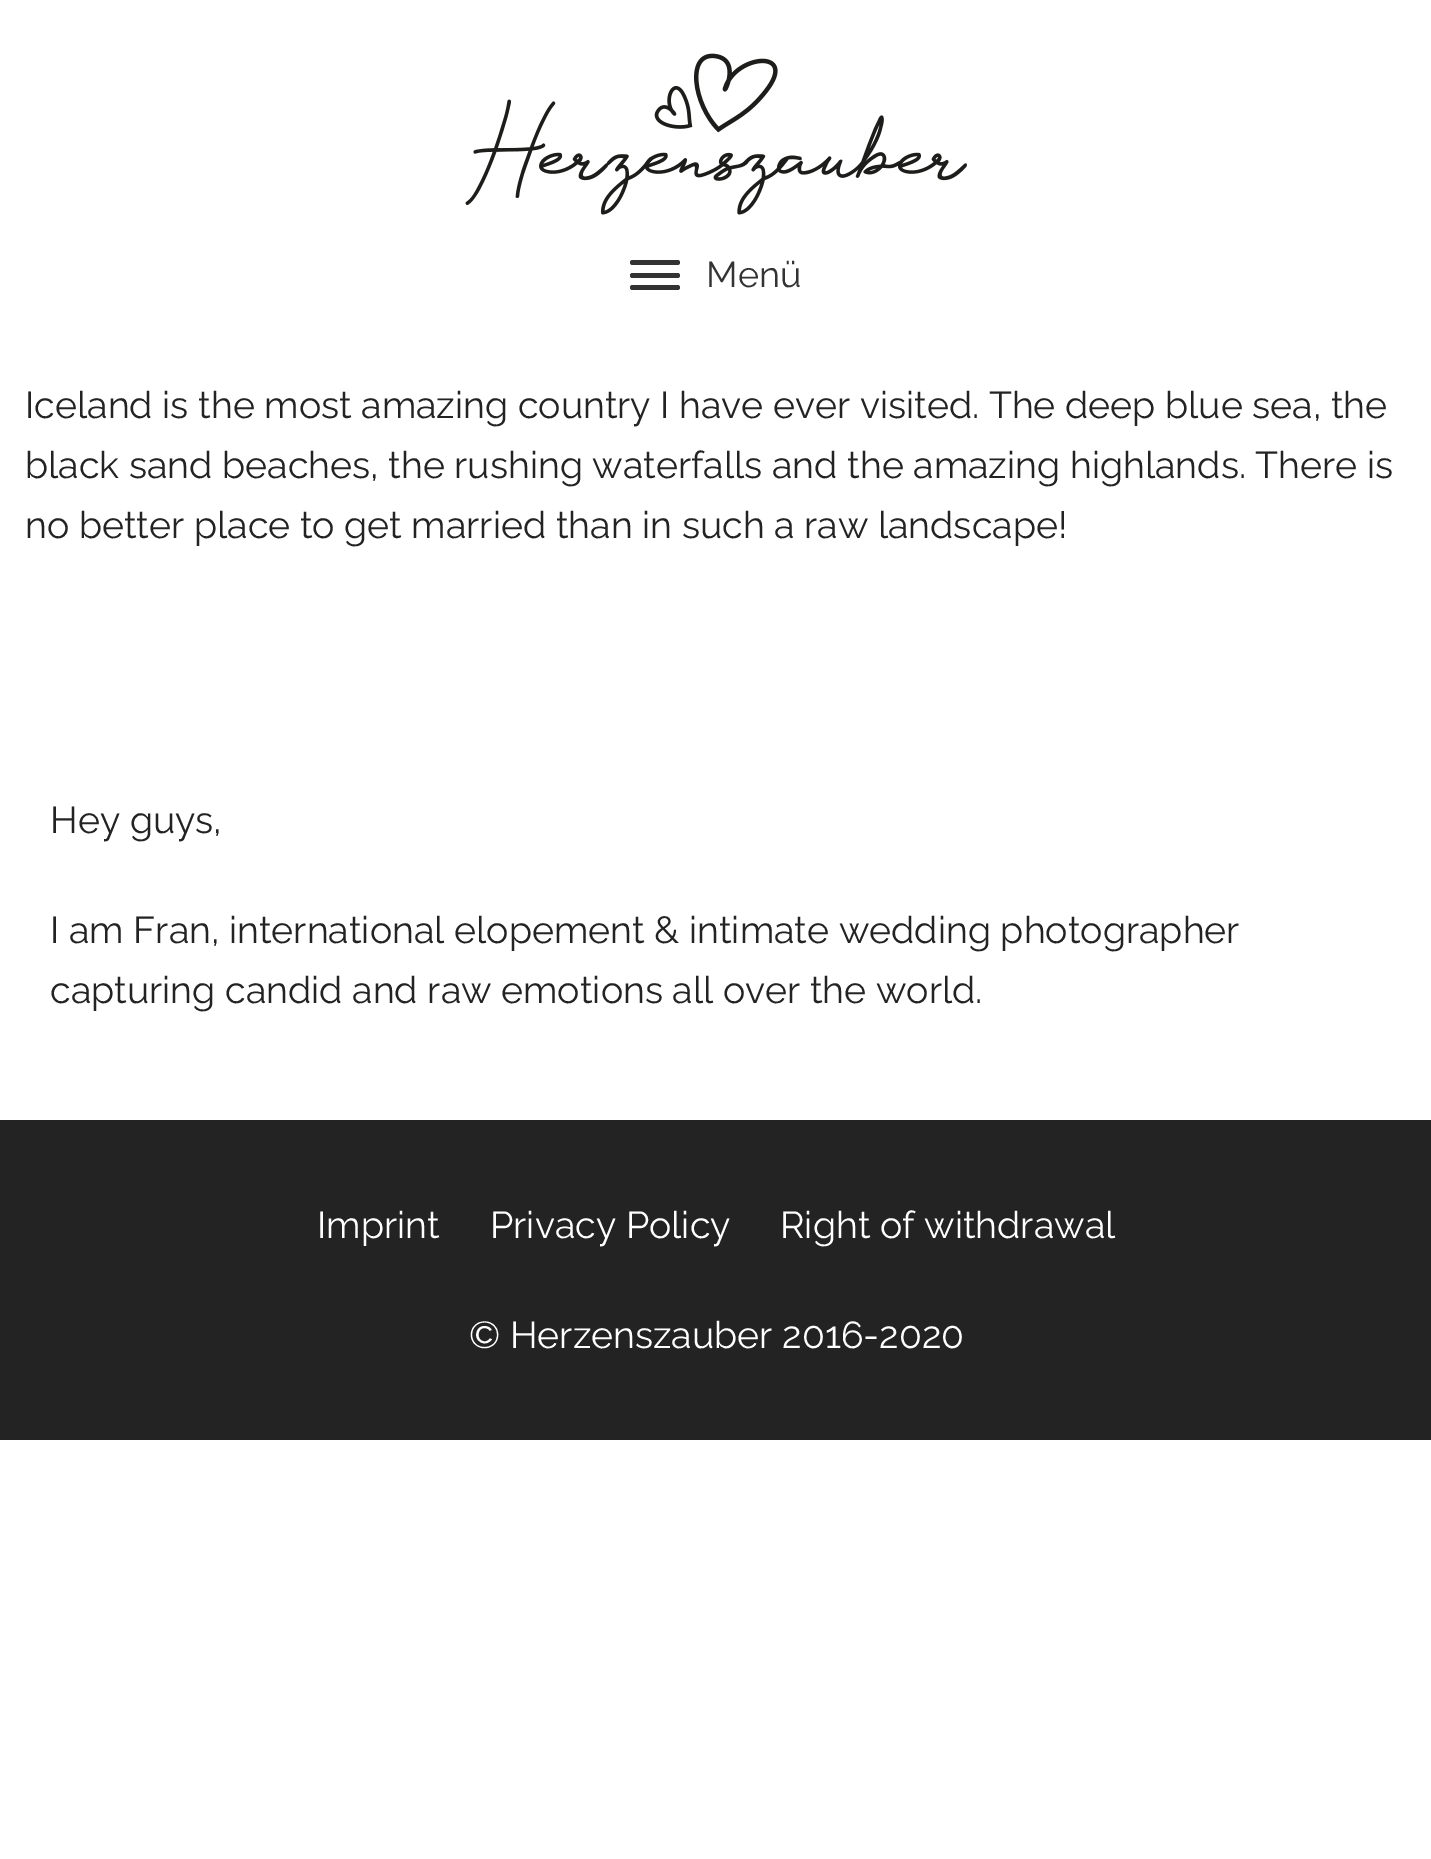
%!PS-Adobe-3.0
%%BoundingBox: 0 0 1431 1859
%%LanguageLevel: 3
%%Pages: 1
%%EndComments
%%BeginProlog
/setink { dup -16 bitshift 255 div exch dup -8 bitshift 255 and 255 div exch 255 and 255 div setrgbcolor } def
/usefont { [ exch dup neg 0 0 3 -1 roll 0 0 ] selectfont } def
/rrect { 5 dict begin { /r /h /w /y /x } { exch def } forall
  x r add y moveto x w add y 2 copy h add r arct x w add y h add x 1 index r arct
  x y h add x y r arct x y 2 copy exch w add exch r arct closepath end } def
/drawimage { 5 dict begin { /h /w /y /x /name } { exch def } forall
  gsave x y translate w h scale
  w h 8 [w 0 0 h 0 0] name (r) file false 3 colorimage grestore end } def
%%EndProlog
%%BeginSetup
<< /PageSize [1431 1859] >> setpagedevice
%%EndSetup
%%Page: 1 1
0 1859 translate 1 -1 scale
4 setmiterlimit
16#FFFFFF setink
0 0 1431 1859 rectfill
(img1.raw) 465 53 502 162 drawimage
16#333333 setink
630 260 50 5 2.5 rrect fill
630 273 50 5 2.5 rrect fill
630 285 50 5 2.5 rrect fill
/Raleway-Thin 36 usefont
706 287 moveto (Menü) show
/Raleway-Thin 37.5 usefont
16#232323 setink
[
    [(Iceland is the most amazing country I have ever visited. The deep blue sea, the) 25 418]
    [(black sand beaches, the rushing waterfalls and the amazing highlands. There is) 25 478]
    [(no better place to get married than in such a raw landscape!) 25 538]
    [(Hey guys,) 50 833]
    [(I am Fran, international elopement & intimate wedding photographer) 50 943]
    [(capturing candid and raw emotions all over the world.) 50 1003]
] { aload pop moveto show } forall
0 1120 1431 320 rectfill
16#FFFFFF setink
[
    [(Imprint) 317 1238]
    [(Privacy Policy) 490 1238]
    [(Right of withdrawal) 780 1238]
    [(© Herzenszauber 2016-2020) 469 1348]
] { aload pop moveto show } forall
showpage
%%EOF
